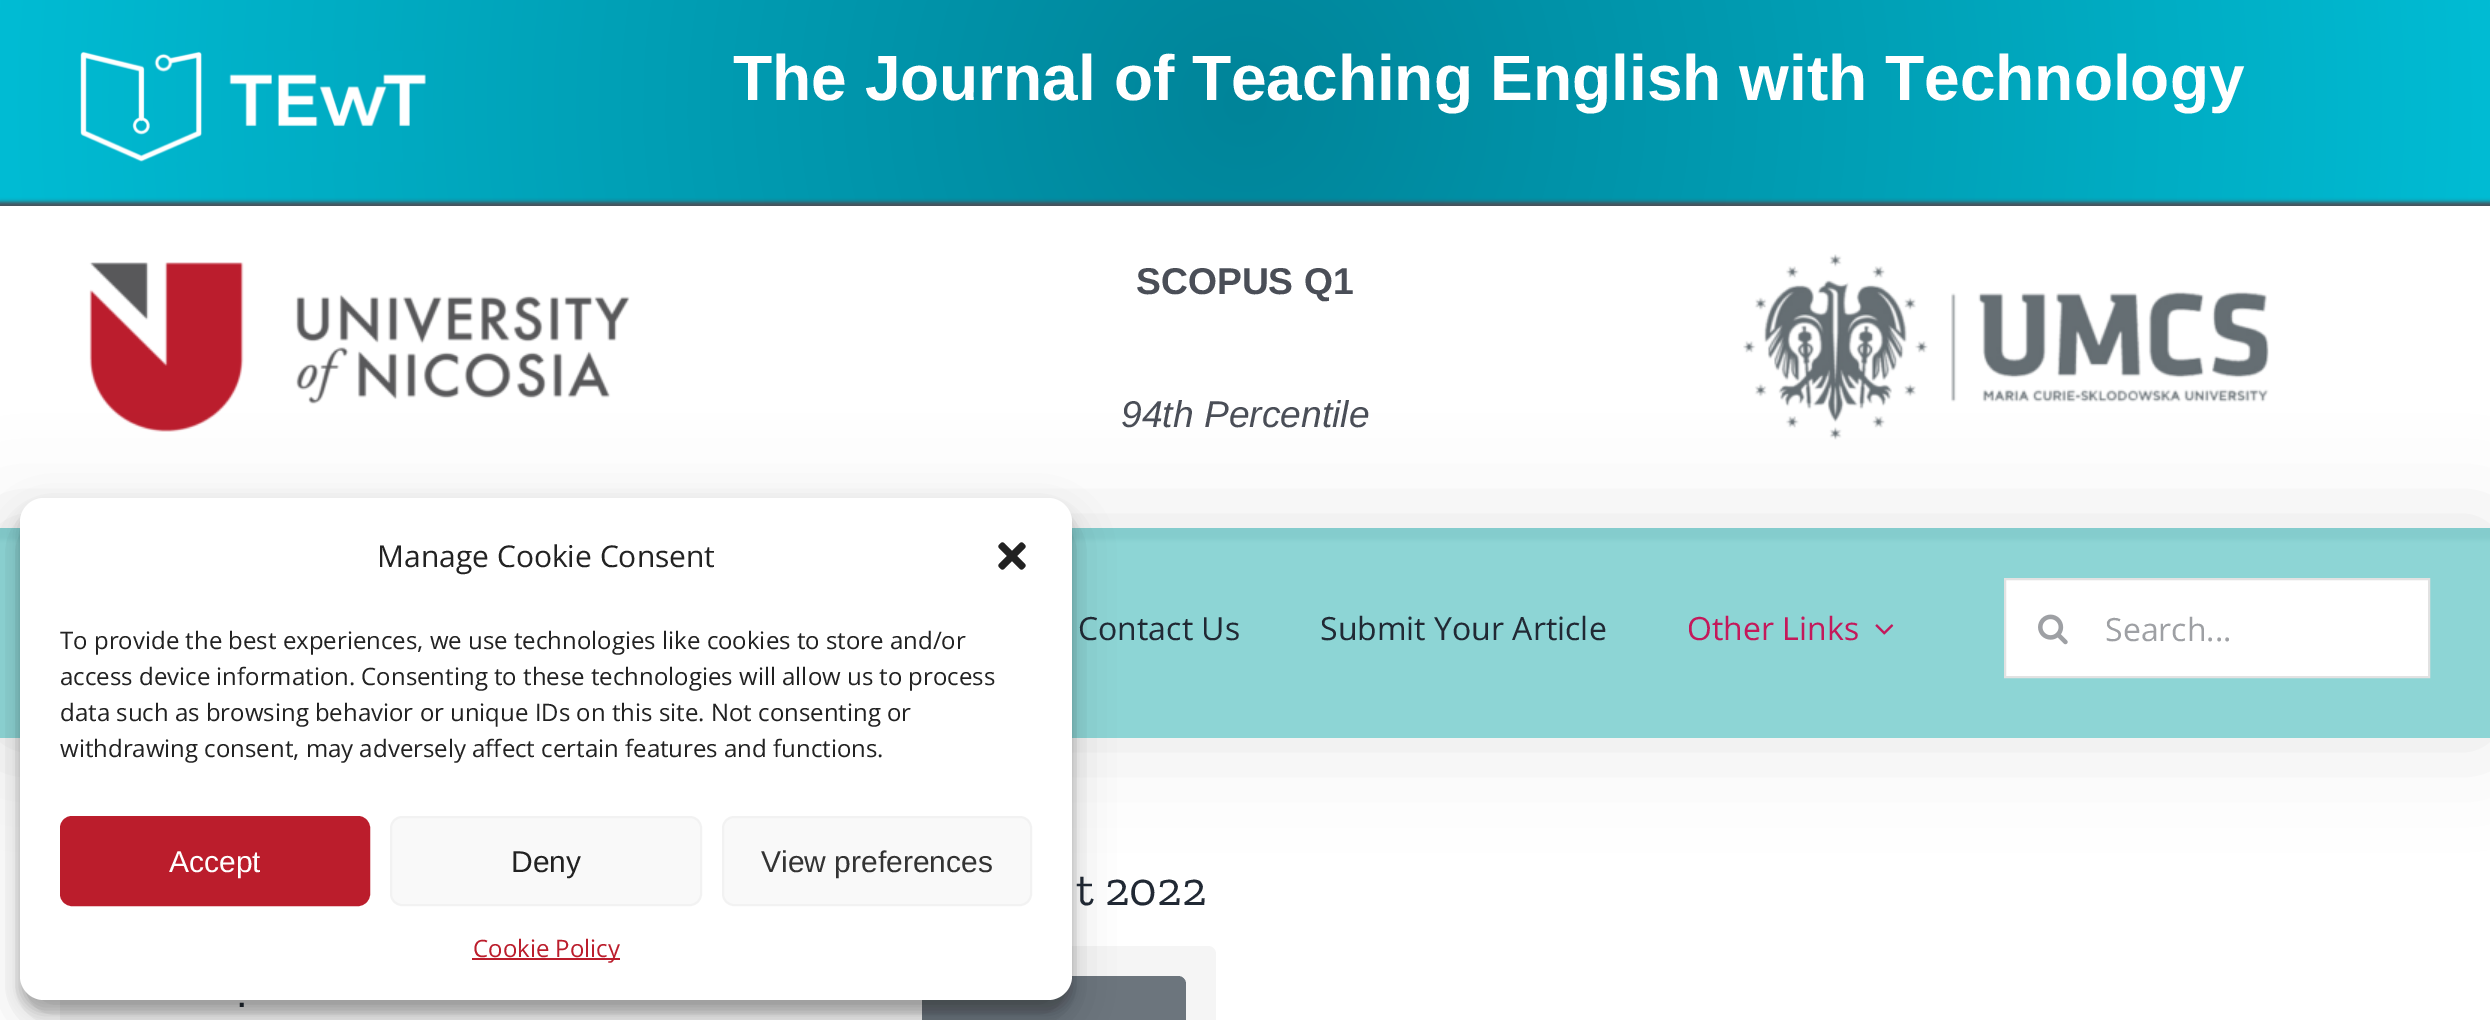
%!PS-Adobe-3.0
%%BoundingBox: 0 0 2490 1020
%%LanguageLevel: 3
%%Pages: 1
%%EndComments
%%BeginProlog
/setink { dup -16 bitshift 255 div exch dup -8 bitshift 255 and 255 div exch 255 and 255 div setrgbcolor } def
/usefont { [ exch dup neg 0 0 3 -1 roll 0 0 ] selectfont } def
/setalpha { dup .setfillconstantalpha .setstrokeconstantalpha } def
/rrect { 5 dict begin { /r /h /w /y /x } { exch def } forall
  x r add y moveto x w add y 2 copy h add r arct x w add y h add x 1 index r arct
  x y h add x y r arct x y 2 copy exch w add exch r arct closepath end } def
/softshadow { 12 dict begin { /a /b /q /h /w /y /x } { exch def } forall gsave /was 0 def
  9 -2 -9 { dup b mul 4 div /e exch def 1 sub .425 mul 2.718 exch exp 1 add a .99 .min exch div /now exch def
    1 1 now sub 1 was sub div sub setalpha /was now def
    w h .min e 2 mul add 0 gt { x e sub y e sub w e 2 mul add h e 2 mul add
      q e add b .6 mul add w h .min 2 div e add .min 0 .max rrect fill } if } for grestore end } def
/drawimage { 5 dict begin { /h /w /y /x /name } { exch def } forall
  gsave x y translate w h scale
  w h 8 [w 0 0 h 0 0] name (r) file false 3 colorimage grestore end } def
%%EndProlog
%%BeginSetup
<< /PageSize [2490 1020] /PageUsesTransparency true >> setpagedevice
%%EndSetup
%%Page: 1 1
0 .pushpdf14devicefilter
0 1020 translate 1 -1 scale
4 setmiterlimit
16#FFFFFF setink
0 0 2490 1020 rectfill
gsave 0 0 moveto 2490 0 lineto 2490 206 lineto 0 206 lineto closepath clip newpath 1245 103 translate 1249 1249 scale
<< /ShadingType 3 /ColorSpace /DeviceRGB /Coords [0 0 0 0 0 1] /Extend [true true] /Function << /FunctionType 2 /Domain [0 1] /C0 [0 0.518 0.6] /C1 [0 0.737 0.831] /N 1 >> >> shfill grestore
(img1.raw) 80 51 346 111 drawimage
/LiberationSans-Bold 64 usefont
733 100 moveto (The Journal of Teaching English with Technology) show
gsave
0 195 moveto 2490 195 lineto 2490 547 lineto 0 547 lineto closepath 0 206 moveto 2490 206 lineto 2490 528 lineto 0 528 lineto closepath eoclip newpath
16#4A4E57 setink
-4 202 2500 338 0 2 1 softshadow
grestore
(img2.raw) 89 262 541 170 drawimage
/LiberationSans-Bold 37.25 usefont
16#4A4E57 setink
1136 294 moveto (SCOPUS Q1) show
/LiberationSans-Italic 37.25 usefont
1121 427 moveto (94th Percentile) show
(img3.raw) 1743 254 526 186 drawimage
gsave
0 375 moveto 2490 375 lineto 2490 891 lineto 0 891 lineto closepath 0 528 moveto 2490 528 lineto 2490 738 lineto 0 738 lineto closepath eoclip newpath
16#000000 setink
-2 526 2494 214 0 50 0.1 softshadow
grestore
0.95 setalpha
16#87D3D3 setink
0 528 2490 210 rectfill
/OpenSans-Regular 32 usefont
1 setalpha
16#212934 setink
1078 640 moveto (Contact Us) show
1320 640 moveto (Submit Your Article) show
16#C4195B setink
1687 640 moveto (Other Links) show
(img4.raw) 1875 624 19 11 drawimage
16#FFFFFF setink
2005 579 moveto 2429 579 lineto 2429 677 lineto 2005 677 lineto closepath gsave fill grestore
16#E2E2E2 setink
2 setlinewidth
stroke
(img5.raw) 2038 614 30 31 drawimage
16#9EA0A4 setink
2105 641 moveto (Search...) show
/ZillaSlab-Regular 48 usefont
16#212934 setink
1076 905 moveto (t 2022) show
16#F5F5F5 setink
60 946 1156 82 8 rrect fill
/ZillaSlab-Bold 32 usefont
16#212934 setink
238 1007 moveto (.) show
16#6C757D setink
922 976 264 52 8 rrect fill
16#000000 setink
20 510 1052 502 24 6 0.23 softshadow
20 518 1052 502 24 20 0.19 softshadow
16#FFFFFF setink
20 498 1052 502 24 rrect fill
/OpenSans-Regular 30 usefont
16#222222 setink
377 567 moveto (Manage Cookie Consent) show
(img6.raw) 998 542 28 28 drawimage
/OpenSans-Regular 24 usefont
[
    [(To provide the best experiences, we use technologies like cookies to store and/or) 60 649]
    [(access device information. Consenting to these technologies will allow us to process) 60 685]
    [(data such as browsing behavior or unique IDs on this site. Not consenting or) 60 721]
    [(withdrawing consent, may adversely affect certain features and functions.) 60 757]
] { aload pop moveto show } forall
16#BB1D2C setink
61 817 308 88 11 rrect gsave fill grestore
stroke
/LiberationSans-Regular 30 usefont
16#FFFFFF setink
169 872 moveto (Accept) show
16#F9F9F9 setink
391 817 310 88 11 rrect gsave fill grestore
16#F2F2F2 setink
stroke
16#222222 setink
511 872 moveto (Deny) show
16#F9F9F9 setink
723 817 308 88 11 rrect gsave fill grestore
16#F2F2F2 setink
stroke
16#333333 setink
761 872 moveto (View preferences) show
16#BB1D2C setink
472 958 148 2 rectfill
/OpenSans-Regular 24 usefont
473 957 moveto (Cookie Policy) show
.poppdf14devicefilter showpage
%%EOF
